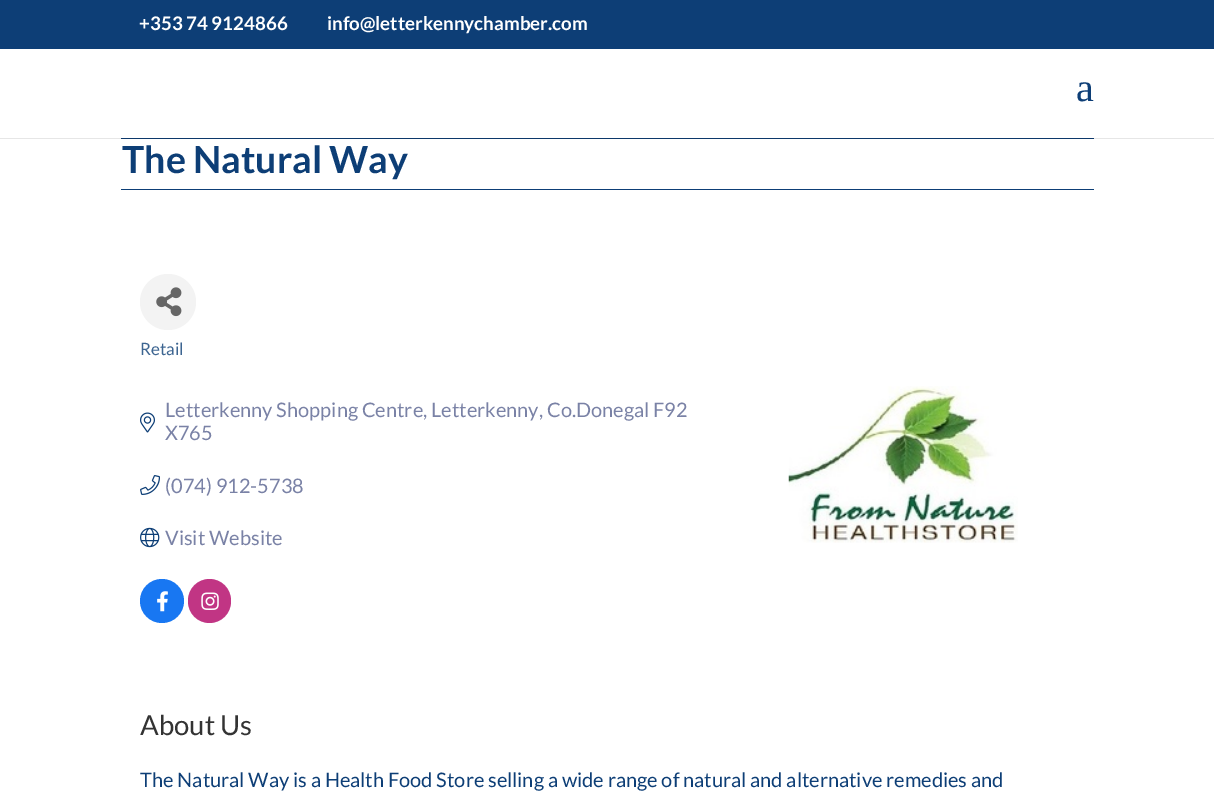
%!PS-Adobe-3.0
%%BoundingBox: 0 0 1214 807
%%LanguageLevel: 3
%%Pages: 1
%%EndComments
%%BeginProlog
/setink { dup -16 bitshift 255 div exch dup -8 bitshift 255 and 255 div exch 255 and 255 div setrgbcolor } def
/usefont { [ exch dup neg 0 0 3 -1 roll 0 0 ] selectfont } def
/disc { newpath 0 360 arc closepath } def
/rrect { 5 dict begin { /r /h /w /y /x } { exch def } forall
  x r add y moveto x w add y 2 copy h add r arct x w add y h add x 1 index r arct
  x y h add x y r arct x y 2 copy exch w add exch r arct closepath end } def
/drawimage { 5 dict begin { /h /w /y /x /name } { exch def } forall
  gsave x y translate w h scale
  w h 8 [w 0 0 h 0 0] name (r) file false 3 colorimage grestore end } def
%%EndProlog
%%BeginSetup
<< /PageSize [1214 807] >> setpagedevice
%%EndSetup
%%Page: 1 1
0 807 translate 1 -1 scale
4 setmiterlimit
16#FFFFFF setink
0 0 1214 807 rectfill
16#0D3E76 setink
0 0 1214 49 rectfill
/Lato-Bold 18.75 usefont
16#FFFFFF setink
139 30 moveto (+353 74 9124866) show
327 30 moveto (info@letterkennychamber.com) show
/LiberationSerif-Regular 40 usefont
16#0D3E76 setink
1076 101 moveto (a) show
16#E6E6E6 setink
0 138 1214 1 rectfill
16#0C386A setink
121 138 973 1 rectfill
/Lato-Bold 37.5 usefont
16#0D3E76 setink
122 173 moveto (The Natural Way) show
121 189 973 1 rectfill
16#F3F3F3 setink
168 302 28 disc fill
(img1.raw) 156 287 26 30 drawimage
/Lato-Regular 17 usefont
16#3D6591 setink
140 355 moveto (Retail) show
(img2.raw) 140 412 15 21 drawimage
/Lato-Regular 20 usefont
16#7A82A6 setink
165 417 moveto (Letterkenny Shopping Centre, Letterkenny, Co.Donegal F92) show
165 440 moveto (X765) show
(img3.raw) 140 475 20 20 drawimage
165 493 moveto (\(074\) 912-5738) show
(img4.raw) 140 527 20 21 drawimage
165 545 moveto (Visit Website) show
16#1877F2 setink
162 601 22 disc fill
(img5.raw) 157 591 11 21 drawimage
16#C13584 setink
188 579 43 44 21.5 rrect fill
(img6.raw) 201 592 18 18 drawimage
(img7.raw) 788 386 230 157 drawimage
/Lato-Regular 27.5 usefont
16#333333 setink
140 735 moveto (About Us) show
/Lato-Regular 20 usefont
16#0D3E76 setink
140 787 moveto (The Natural Way is a Health Food Store selling a wide range of natural and alternative remedies and) show
showpage
%%EOF
